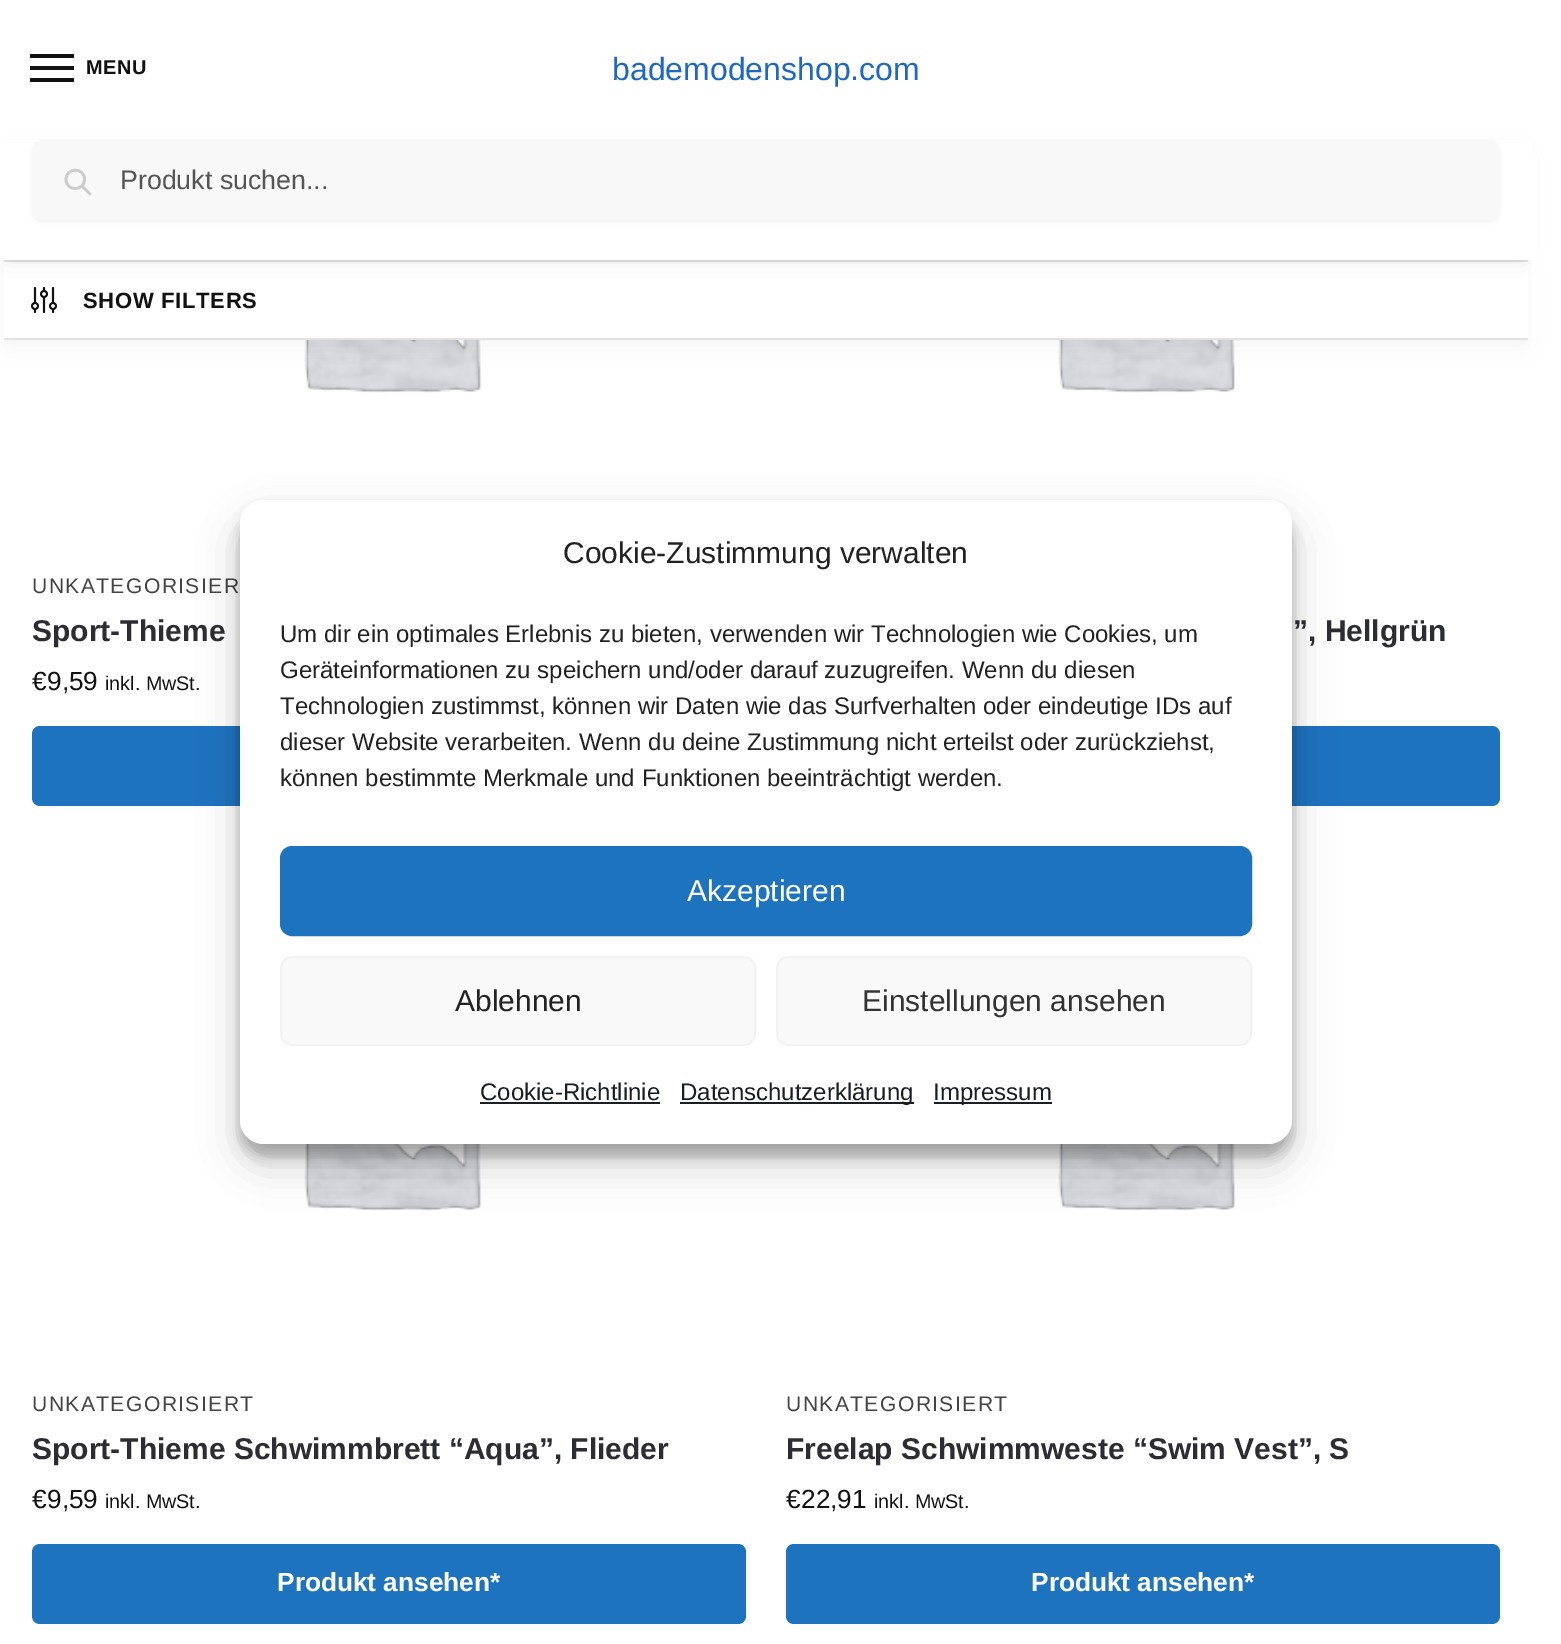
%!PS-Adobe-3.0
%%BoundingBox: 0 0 1561 1644
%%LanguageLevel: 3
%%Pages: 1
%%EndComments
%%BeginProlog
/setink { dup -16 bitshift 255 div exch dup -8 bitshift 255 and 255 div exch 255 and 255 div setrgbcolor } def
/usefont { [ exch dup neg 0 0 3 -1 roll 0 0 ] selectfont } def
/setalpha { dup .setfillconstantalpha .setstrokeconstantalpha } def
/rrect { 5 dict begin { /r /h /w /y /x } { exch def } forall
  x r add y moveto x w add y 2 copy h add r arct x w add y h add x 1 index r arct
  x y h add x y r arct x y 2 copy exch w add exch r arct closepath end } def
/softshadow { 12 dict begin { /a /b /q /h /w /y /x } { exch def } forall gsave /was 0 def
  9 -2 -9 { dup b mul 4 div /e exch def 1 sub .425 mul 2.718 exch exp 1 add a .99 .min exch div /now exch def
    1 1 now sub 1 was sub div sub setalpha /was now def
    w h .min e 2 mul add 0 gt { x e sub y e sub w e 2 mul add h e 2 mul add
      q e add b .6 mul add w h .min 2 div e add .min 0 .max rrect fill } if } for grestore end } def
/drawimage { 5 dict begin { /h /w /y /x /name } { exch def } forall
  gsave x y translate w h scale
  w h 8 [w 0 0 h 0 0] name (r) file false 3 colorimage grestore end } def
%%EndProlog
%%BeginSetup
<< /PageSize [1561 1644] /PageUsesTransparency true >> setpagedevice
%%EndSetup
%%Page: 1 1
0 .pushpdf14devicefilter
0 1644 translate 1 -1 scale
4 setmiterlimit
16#FFFFFF setink
0 0 1561 1644 rectfill
16#111111 setink
30 54 44 4 rectfill
30 66 44 4 rectfill
/LiberationSans-Bold 20 usefont
86 74 moveto 0.5 0 (MENU) ashow
30 78 44 4 rectfill
/LiberationSans-Regular 32 usefont
16#1E68C4 setink
612 80 moveto (bademodenshop.com) show
(img2.raw) 304 340 178 53 drawimage
(img3.raw) 1058 340 178 53 drawimage
16#000000 setink
8 272 1516 72 0 12 0.06 softshadow
16#FFFFFF setink
4 262 1524 76 rectfill
16#E2E2E2 setink
4 260 1524 2 rectfill
(img1.raw) 30 286 28 28 drawimage
16#000000 setink
10 156 1512 100 0 10 0.18 softshadow
16#FFFFFF setink
0 140 1532 120 rectfill
16#000000 setink
32 142 1468 80 10 2 0.05 softshadow
16#F8F8F8 setink
32 140 1468 80 10 rrect fill
16#CCCCCC setink
2.7 setlinewidth
1 setlinecap
1 setlinejoin
90 194 moveto 82 186 lineto 84.5 179.5 moveto 84.5 191.5 66 191.5 66 179.5 curveto 66 167 84.5 167 84.5 179.5 curveto closepath stroke
/LiberationSans-Regular 26.75 usefont
16#555555 setink
120 189 moveto (Produkt suchen...) show
16#FFFFFF setink
1532 153 6 185 rectfill
16#E2E2E2 setink
4 338 1524 2 rectfill
/LiberationSans-Bold 22 usefont
16#111111 setink
83 308 moveto 0.7 0 (SHOW FILTERS) ashow
/LiberationSans-Regular 21.1 usefont
16#444444 setink
32 593 moveto 1.4 0 (UNKATEGORISIER) ashow
/LiberationSans-Bold 30 usefont
16#2C2D33 setink
32 641 moveto (Sport-Thieme) show
/LiberationSans-Regular 26.25 usefont
16#111111 setink
32 690 moveto (€) show
47 690 moveto (9,59) show
/LiberationSans-Regular 19.75 usefont
105 690 moveto (inkl. MwSt.) show
16#1E73BE setink
32 726 714 80 8 rrect fill
/LiberationSans-Bold 30 usefont
16#2C2D33 setink
1293 641 moveto (”, Hellgrün) show
16#1E73BE setink
786 726 714 80 8 rrect fill
(img4.raw) 304 1144 178 67 drawimage
/LiberationSans-Regular 21.1 usefont
16#444444 setink
32 1411 moveto 1.4 0 (UNKATEGORISIERT) ashow
/LiberationSans-Bold 30 usefont
16#2C2D33 setink
32 1459 moveto (Sport-Thieme Schwimmbrett “Aqua”, Flieder) show
/LiberationSans-Regular 26.25 usefont
16#111111 setink
32 1508 moveto (€) show
47 1508 moveto (9,59) show
/LiberationSans-Regular 19.75 usefont
105 1508 moveto (inkl. MwSt.) show
16#1E73BE setink
32 1544 714 80 8 rrect fill
/LiberationSans-Bold 26.25 usefont
16#FFFFFF setink
277 1591 moveto (Produkt ansehen*) show
(img5.raw) 1058 1144 178 67 drawimage
/LiberationSans-Regular 21.1 usefont
16#444444 setink
786 1411 moveto 1.4 0 (UNKATEGORISIERT) ashow
/LiberationSans-Bold 30 usefont
16#2C2D33 setink
786 1459 moveto (Freelap Schwimmweste “Swim Vest”, S) show
/LiberationSans-Regular 26.25 usefont
16#111111 setink
786 1508 moveto (€) show
801 1508 moveto (22,91) show
/LiberationSans-Regular 19.75 usefont
874 1508 moveto (inkl. MwSt.) show
16#1E73BE setink
786 1544 714 80 8 rrect fill
/LiberationSans-Bold 26.25 usefont
16#FFFFFF setink
1031 1591 moveto (Produkt ansehen*) show
16#000000 setink
240 512 1052 644 24 6 0.23 softshadow
240 520 1052 644 24 20 0.19 softshadow
16#FFFFFF setink
240 500 1052 644 24 rrect fill
/LiberationSans-Regular 30 usefont
16#222222 setink
563 563 moveto (Cookie-Zustimmung verwalten) show
/LiberationSans-Regular 24 usefont
[
    [(Um dir ein optimales Erlebnis zu bieten, verwenden wir Technologien wie Cookies, um) 280 642]
    [(Geräteinformationen zu speichern und/oder darauf zuzugreifen. Wenn du diesen) 280 678]
    [(Technologien zustimmst, können wir Daten wie das Surfverhalten oder eindeutige IDs auf) 280 714]
    [(dieser Website verarbeiten. Wenn du deine Zustimmung nicht erteilst oder zurückziehst,) 280 750]
    [(können bestimmte Merkmale und Funktionen beeinträchtigt werden.) 280 786]
] { aload pop moveto show } forall
16#1E73BE setink
281 847 970 88 11 rrect gsave fill grestore
2 setlinewidth
0 setlinecap
0 setlinejoin
stroke
/LiberationSans-Regular 30 usefont
16#FFFFFF setink
687 901 moveto (Akzeptieren) show
16#F9F9F9 setink
281 957 474 88 11 rrect gsave fill grestore
16#F2F2F2 setink
stroke
16#222222 setink
455 1011 moveto (Ablehnen) show
16#F9F9F9 setink
777 957 474 88 11 rrect gsave fill grestore
16#F2F2F2 setink
stroke
16#333333 setink
862 1011 moveto (Einstellungen ansehen) show
/LiberationSans-Regular 24 usefont
16#191E23 setink
480 1100 moveto (Cookie-Richtlinie) show
480 1102 180 2 rectfill
680 1102 234 2 rectfill
680 1100 moveto (Datenschutzerklärung) show
934 1102 118 2 rectfill
933 1100 moveto (Impressum) show
.poppdf14devicefilter showpage
%%EOF
